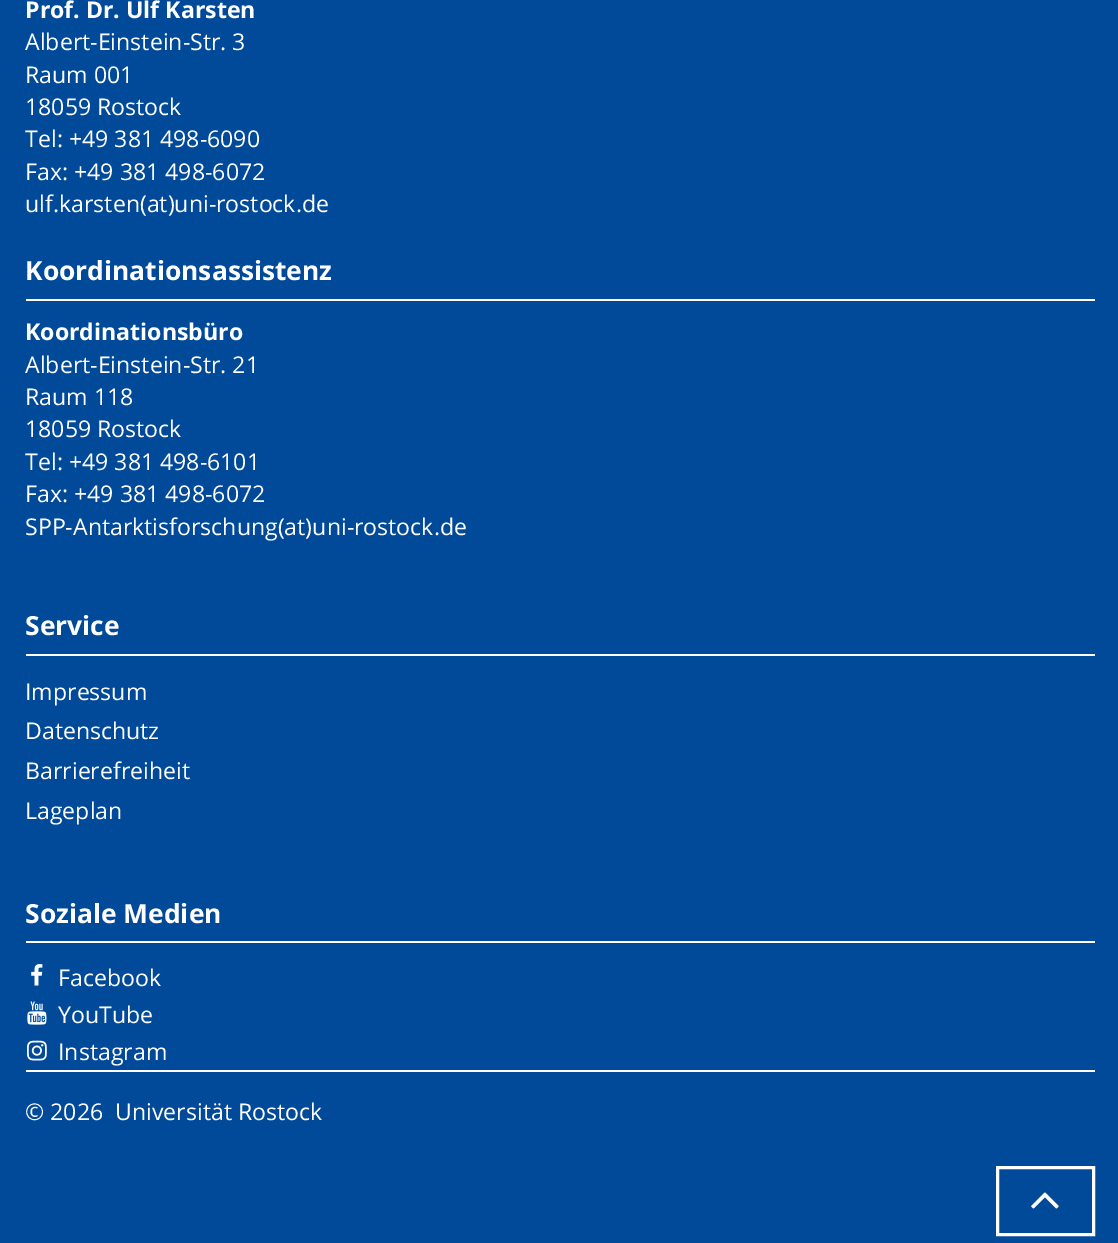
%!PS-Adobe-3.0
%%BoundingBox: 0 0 1118 1243
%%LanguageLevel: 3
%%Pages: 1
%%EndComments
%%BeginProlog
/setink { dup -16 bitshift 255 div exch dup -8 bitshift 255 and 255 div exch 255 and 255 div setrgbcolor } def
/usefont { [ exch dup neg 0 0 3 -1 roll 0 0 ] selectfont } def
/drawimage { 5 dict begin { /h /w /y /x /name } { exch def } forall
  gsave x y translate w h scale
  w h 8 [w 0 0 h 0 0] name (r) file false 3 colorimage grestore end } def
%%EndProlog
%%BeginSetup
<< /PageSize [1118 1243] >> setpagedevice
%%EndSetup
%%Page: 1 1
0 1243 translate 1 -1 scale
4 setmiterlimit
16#004A99 setink
0 0 1118 1243 rectfill
/OpenSans-Bold 23.1 usefont
16#FFFFFF setink
25 18 moveto (Prof. Dr. Ulf Karsten) show
/OpenSans-Regular 23.1 usefont
[
    [(Albert-Einstein-Str. 3) 25 50]
    [(Raum 001) 25 83]
    [(18059 Rostock) 25 115]
    [(Tel: +49 381 498-6090) 25 147]
    [(Fax: +49 381 498-6072) 25 180]
    [(ulf.karsten\(at\)uni-rostock.de) 25 212]
] { aload pop moveto show } forall
26 299 1069 2 rectfill
/OpenSans-Bold 26.4 usefont
25 280 moveto (Koordinationsassistenz) show
/OpenSans-Bold 23.1 usefont
25 340 moveto (Koordinationsbüro) show
/OpenSans-Regular 23.1 usefont
[
    [(Albert-Einstein-Str. 21) 25 373]
    [(Raum 118) 25 405]
    [(18059 Rostock) 25 437]
    [(Tel: +49 381 498-6101) 25 470]
    [(Fax: +49 381 498-6072) 25 502]
    [(SPP-Antarktisforschung\(at\)uni-rostock.de) 25 535]
] { aload pop moveto show } forall
26 654 1069 2 rectfill
/OpenSans-Bold 26.4 usefont
25 635 moveto (Service) show
/OpenSans-Regular 23.1 usefont
[
    [(Impressum) 25 700]
    [(Datenschutz) 25 739]
    [(Barrierefreiheit) 25 779]
    [(Lageplan) 25 819]
] { aload pop moveto show } forall
26 941 1069 2 rectfill
/OpenSans-Bold 26.4 usefont
25 923 moveto (Soziale Medien) show
(img1.raw) 31 964 12 22 drawimage
/OpenSans-Regular 23.1 usefont
58 986 moveto (Facebook) show
(img2.raw) 27 1001 20 24 drawimage
58 1023 moveto (YouTube) show
(img3.raw) 27 1040 20 21 drawimage
58 1060 moveto (Instagram) show
26 1070 1069 2 rectfill
25 1120 moveto (© 2026  Universität Rostock) show
3 setlinewidth
997.5 1167.5 96 67 rectstroke
(img4.raw) 1031 1192 28 17 drawimage
showpage
%%EOF
